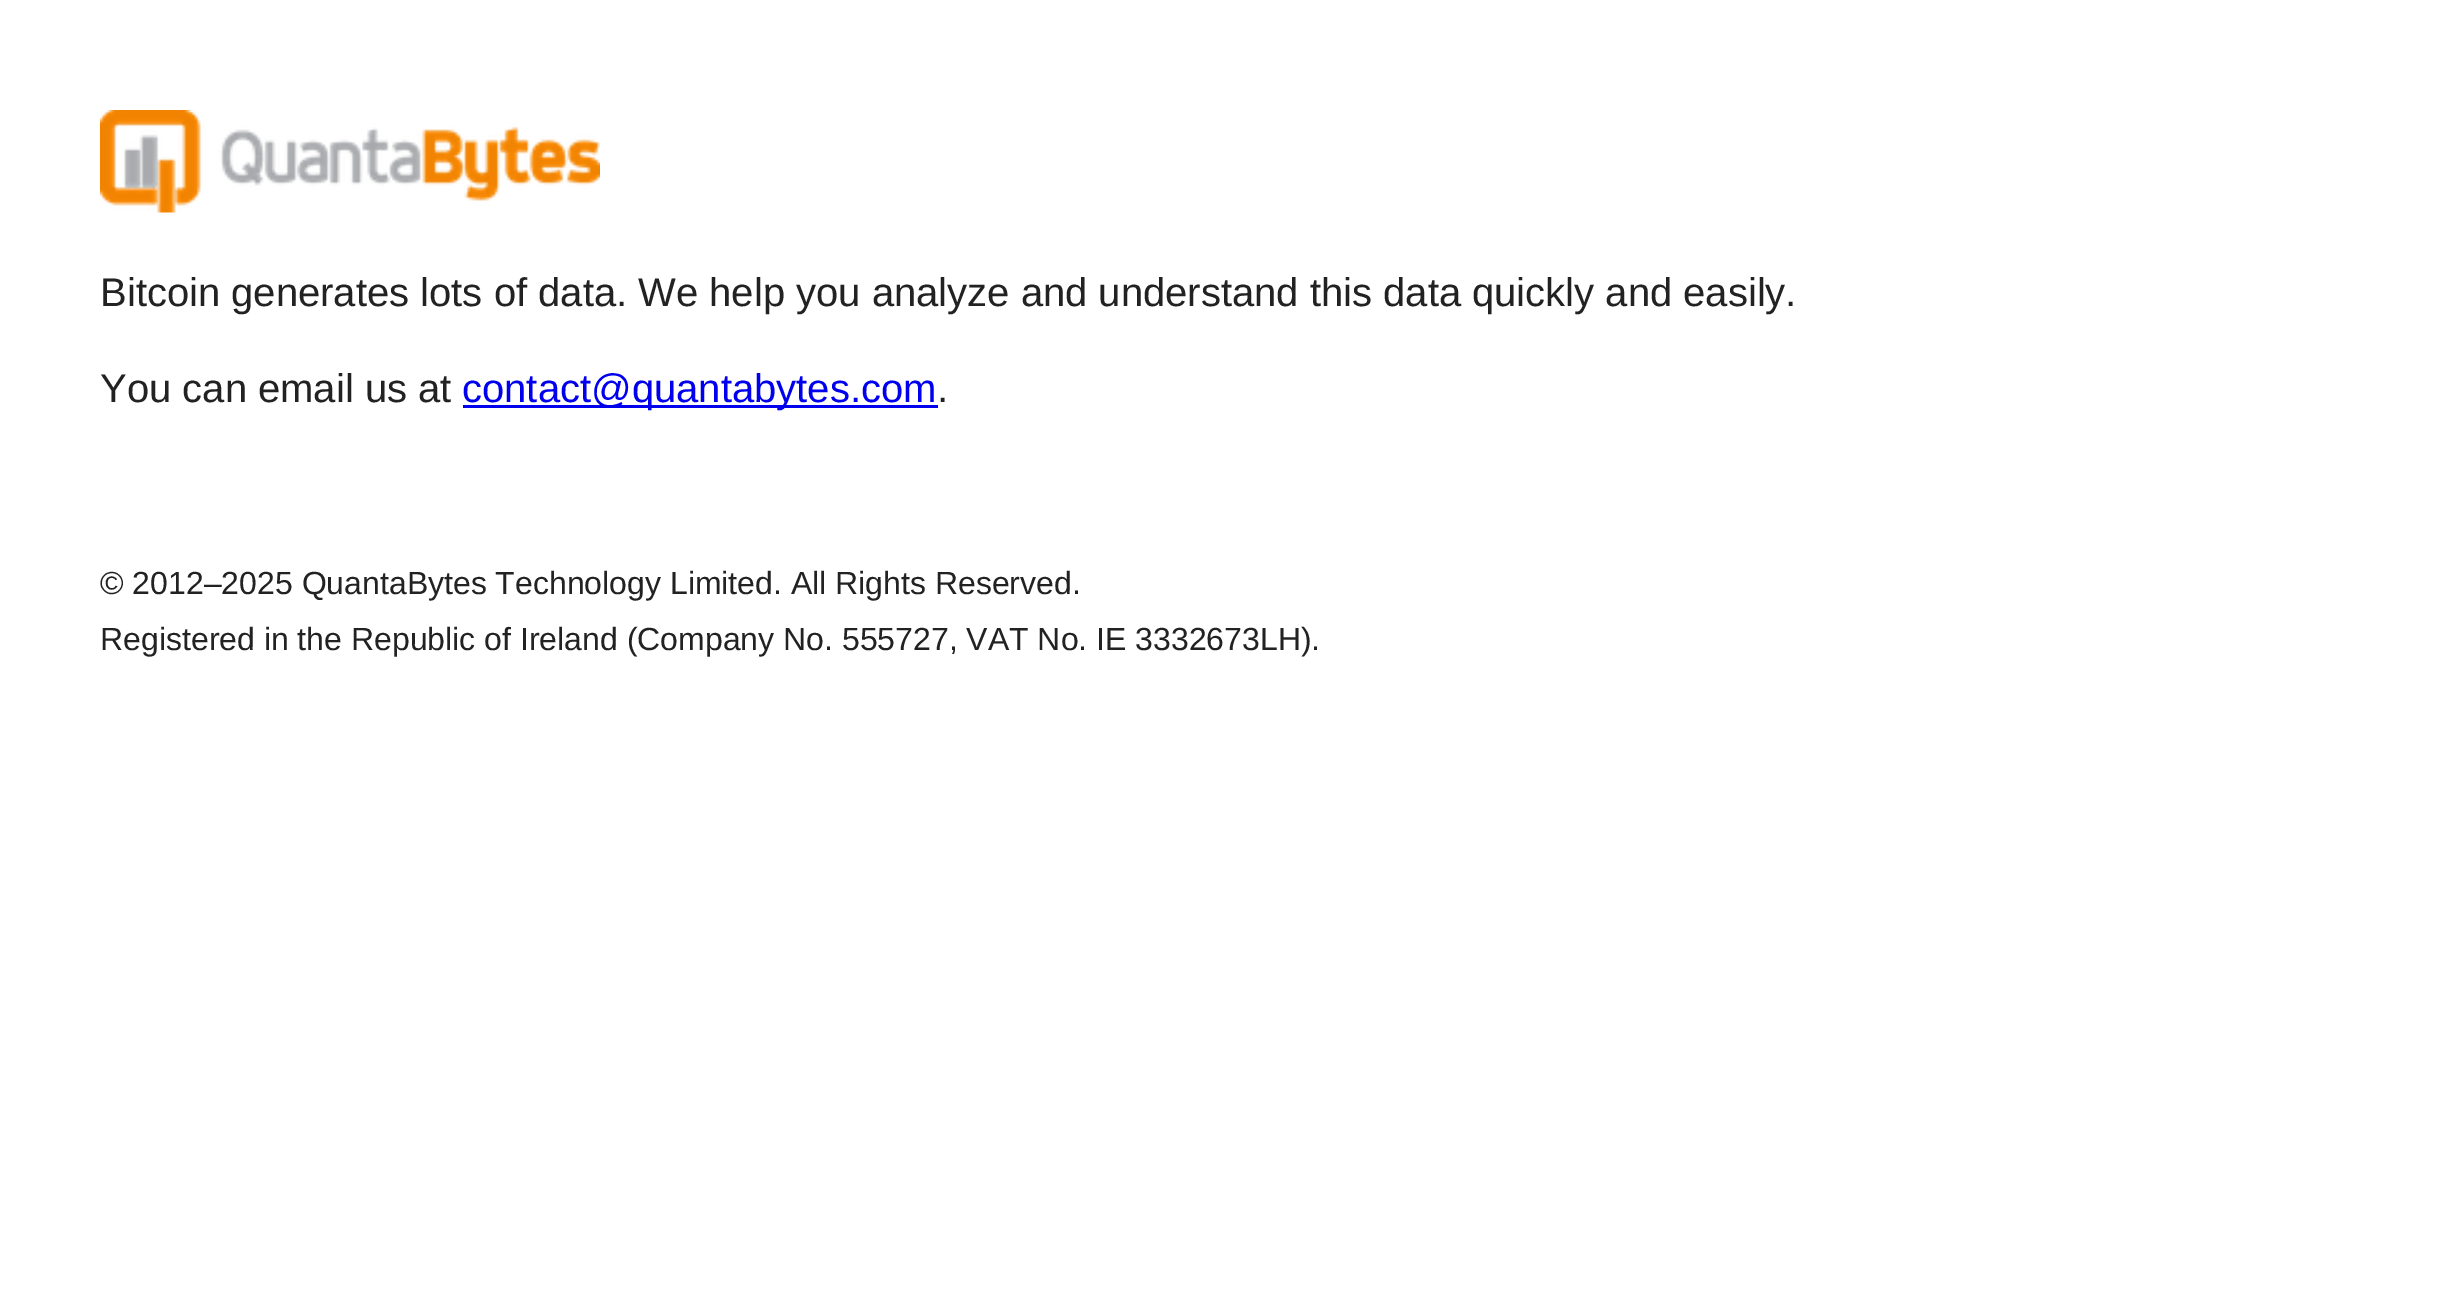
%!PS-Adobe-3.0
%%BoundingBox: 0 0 2443 1307
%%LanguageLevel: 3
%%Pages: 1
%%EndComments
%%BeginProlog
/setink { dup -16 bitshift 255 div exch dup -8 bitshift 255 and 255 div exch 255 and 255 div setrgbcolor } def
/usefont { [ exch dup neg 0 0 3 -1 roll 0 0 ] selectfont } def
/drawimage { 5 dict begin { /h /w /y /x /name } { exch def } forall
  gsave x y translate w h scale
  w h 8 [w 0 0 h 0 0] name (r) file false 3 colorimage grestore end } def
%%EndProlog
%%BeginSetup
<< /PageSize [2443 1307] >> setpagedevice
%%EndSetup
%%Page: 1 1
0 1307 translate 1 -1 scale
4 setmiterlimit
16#FFFFFF setink
0 0 2443 1307 rectfill
(img1.raw) 100 110 500 103 drawimage
/LiberationSans-Regular 40 usefont
16#222222 setink
100 306 moveto (Bitcoin generates lots of data. We help you analyze and understand this data quickly and easily.) show
100 402 moveto (You can email us at) show
16#0000EE setink
463 405 475 3 rectfill
462 402 moveto (contact@quantabytes.com) show
16#222222 setink
937 402 moveto (.) show
/LiberationSans-Regular 32 usefont
100 594 moveto (© 2012–2025 QuantaBytes Technology Limited. All Rights Reserved.) show
100 650 moveto (Registered in the Republic of Ireland \(Company No. 555727, VAT No. IE 3332673LH\).) show
showpage
%%EOF
